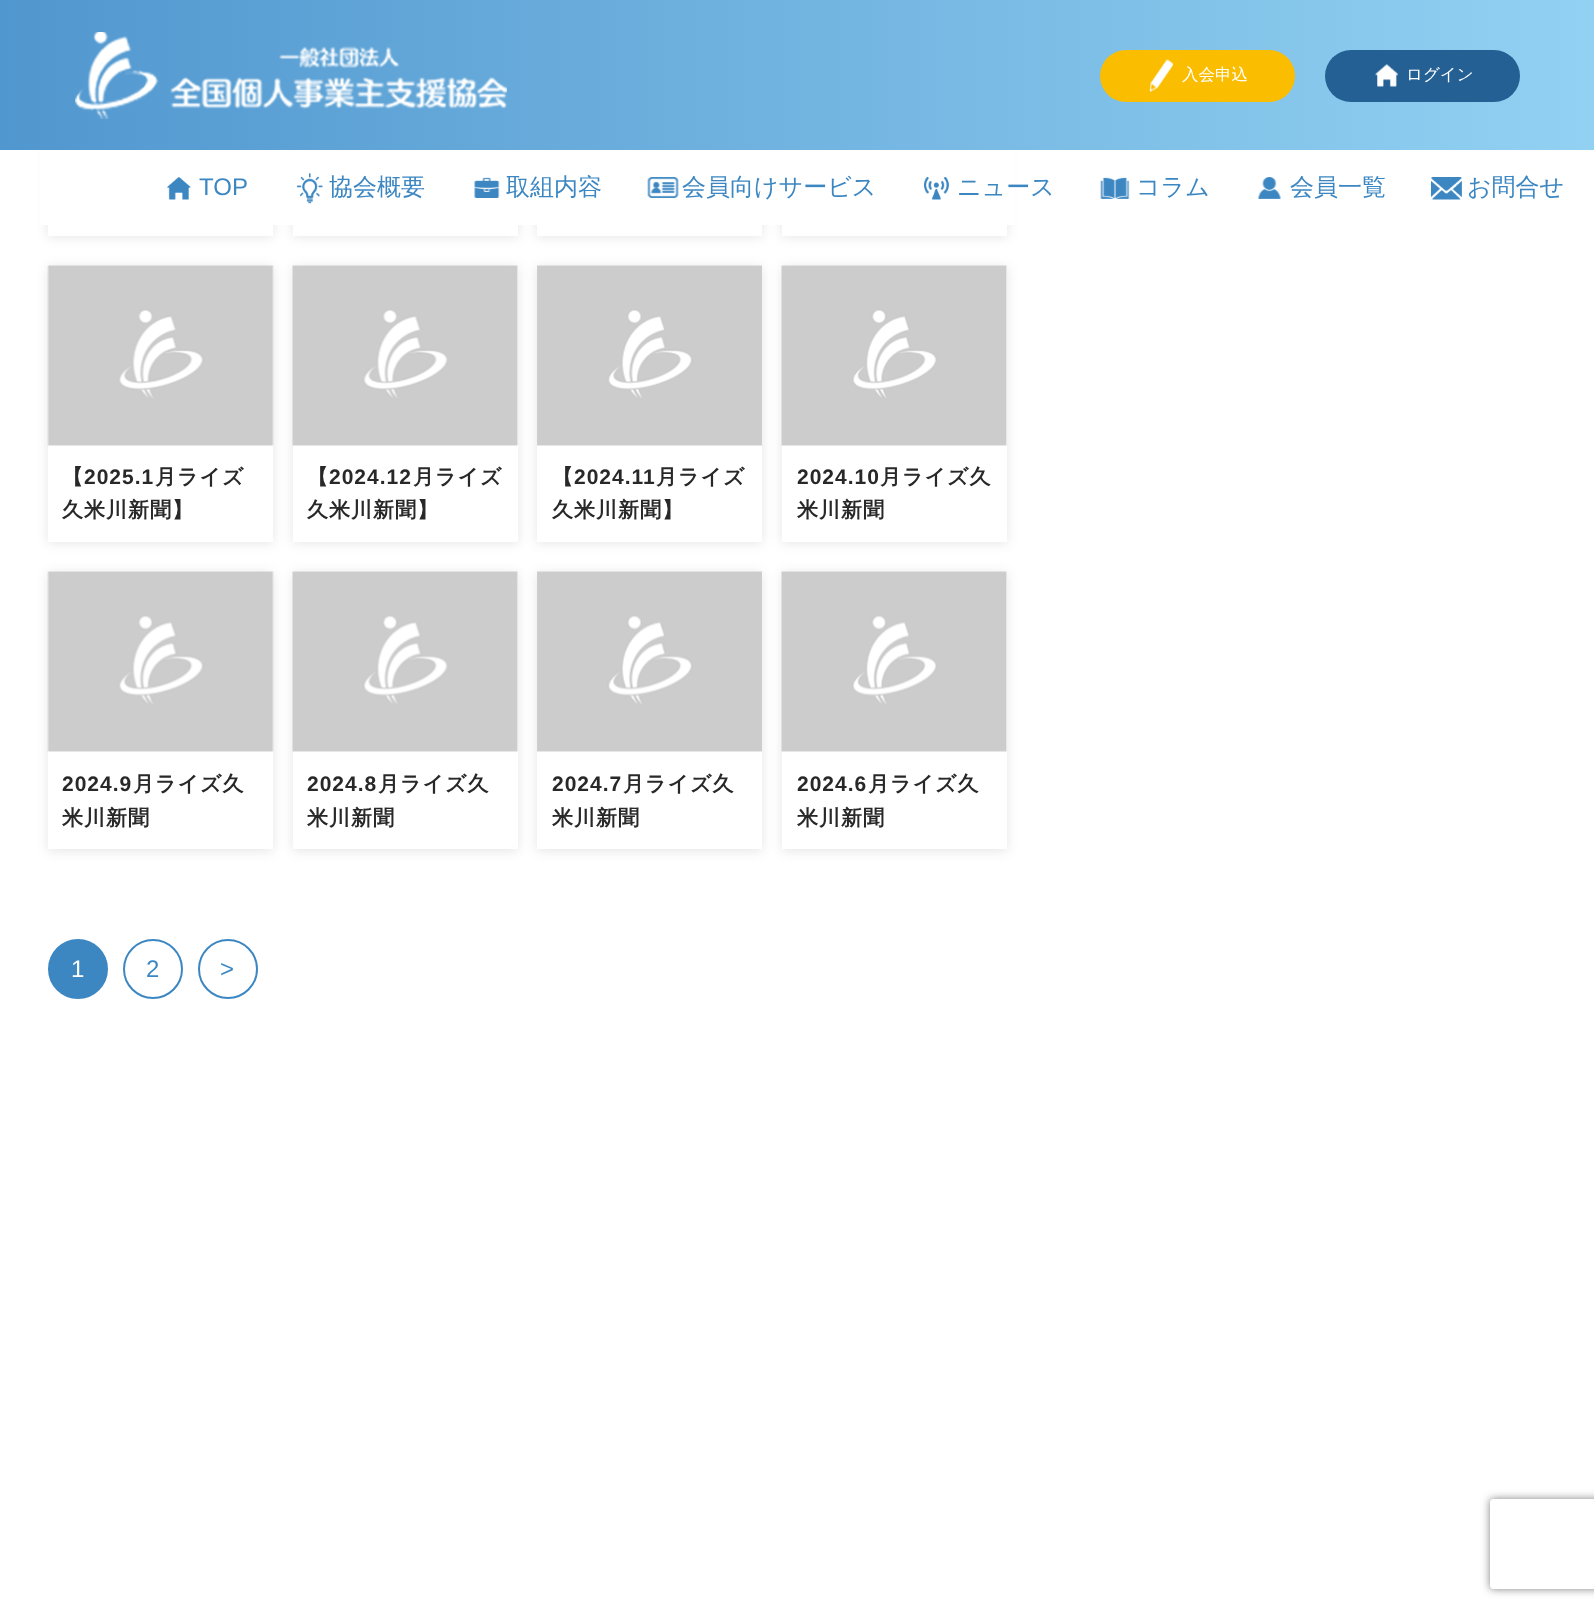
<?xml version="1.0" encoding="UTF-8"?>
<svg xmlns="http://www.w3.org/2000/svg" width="1594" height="1609">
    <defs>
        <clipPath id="clip1"><path d="M 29 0 H 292 V 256 H 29 Z M 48 -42 H 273 V 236 H 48 Z" clip-rule="evenodd"/></clipPath>
        <filter id="blur1" x="-50%" y="-200%" width="200%" height="500%"><feGaussianBlur stdDeviation="6"/></filter>
        <clipPath id="clip2"><path d="M 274 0 H 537 V 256 H 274 Z M 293 -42 H 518 V 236 H 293 Z" clip-rule="evenodd"/></clipPath>
        <clipPath id="clip3"><path d="M 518 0 H 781 V 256 H 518 Z M 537 -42 H 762 V 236 H 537 Z" clip-rule="evenodd"/></clipPath>
        <clipPath id="clip4"><path d="M 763 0 H 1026 V 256 H 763 Z M 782 -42 H 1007 V 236 H 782 Z" clip-rule="evenodd"/></clipPath>
        <linearGradient id="g1" gradientUnits="userSpaceOnUse" x1="0" y1="75" x2="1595" y2="75"><stop offset="0" stop-color="#5197CF"/><stop offset="1" stop-color="#92D1F2"/></linearGradient>
        <clipPath id="clip5"><path d="M 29 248 H 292 V 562 H 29 Z M 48 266 H 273 V 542 H 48 Z" clip-rule="evenodd"/></clipPath>
        <clipPath id="clip6"><path d="M 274 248 H 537 V 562 H 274 Z M 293 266 H 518 V 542 H 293 Z" clip-rule="evenodd"/></clipPath>
        <clipPath id="clip7"><path d="M 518 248 H 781 V 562 H 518 Z M 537 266 H 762 V 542 H 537 Z" clip-rule="evenodd"/></clipPath>
        <clipPath id="clip8"><path d="M 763 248 H 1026 V 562 H 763 Z M 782 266 H 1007 V 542 H 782 Z" clip-rule="evenodd"/></clipPath>
        <clipPath id="clip9"><path d="M 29 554 H 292 V 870 H 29 Z M 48 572 H 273 V 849 H 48 Z" clip-rule="evenodd"/></clipPath>
        <clipPath id="clip10"><path d="M 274 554 H 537 V 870 H 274 Z M 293 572 H 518 V 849 H 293 Z" clip-rule="evenodd"/></clipPath>
        <clipPath id="clip11"><path d="M 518 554 H 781 V 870 H 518 Z M 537 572 H 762 V 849 H 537 Z" clip-rule="evenodd"/></clipPath>
        <clipPath id="clip12"><path d="M 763 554 H 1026 V 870 H 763 Z M 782 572 H 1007 V 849 H 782 Z" clip-rule="evenodd"/></clipPath>
        <clipPath id="clip13"><path d="M 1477 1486 H 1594 V 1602 H 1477 Z M 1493 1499 H 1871 C 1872.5 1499 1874 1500.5 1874 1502 V 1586 C 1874 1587.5 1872.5 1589 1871 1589 H 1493 C 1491.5 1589 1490 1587.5 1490 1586 V 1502 C 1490 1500.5 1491.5 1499 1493 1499 Z" clip-rule="evenodd"/></clipPath>
        <filter id="blur2" x="-50%" y="-200%" width="200%" height="500%"><feGaussianBlur stdDeviation="4"/></filter>
    </defs>
    <rect width="100%" height="100%" fill="#FFFFFF"/>
    <g clip-path="url(#clip1)">
        <rect x="48" y="-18" width="225" height="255" fill="#000000" fill-opacity="0.1" filter="url(#blur1)"/>
    </g>
    <g clip-path="url(#clip2)">
        <rect x="293" y="-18" width="225" height="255" fill="#000000" fill-opacity="0.1" filter="url(#blur1)"/>
    </g>
    <g clip-path="url(#clip3)">
        <rect x="537" y="-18" width="225" height="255" fill="#000000" fill-opacity="0.1" filter="url(#blur1)"/>
    </g>
    <g clip-path="url(#clip4)">
        <rect x="782" y="-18" width="225" height="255" fill="#000000" fill-opacity="0.1" filter="url(#blur1)"/>
    </g>
    <rect x="0" y="0" width="1594" height="150" fill="url(#g1)"/>
    <image x="75" y="32" width="432" height="87" href="img_01.png"/>
    <rect x="1100" y="50" width="195" height="52" rx="26" fill="#FBBD00"/>
    <image x="1149" y="59" width="24" height="33" href="img_02.png"/>
    <text x="1182" y="80" font-family="WenQuanYi Zen Hei" font-size="16.5" font-weight="500" fill="#FFFFFF">入会申込</text>
    <rect x="1325" y="50" width="195" height="52" rx="26" fill="#246093"/>
    <image x="1375" y="64" width="23" height="23" href="img_03.png"/>
    <text x="1406" y="80" font-family="WenQuanYi Zen Hei" font-size="16.5" font-weight="500" fill="#FFFFFF">ログイン</text>
    <rect x="40" y="150" width="975" height="75" fill="#FFFFFF"/>
    <image x="167" y="177" width="24" height="23" href="img_04.png"/>
    <text x="199" y="195" font-family="Liberation Sans" font-size="24" fill="#3C87C2">TOP</text>
    <image x="297" y="173" width="26" height="31" href="img_05.png"/>
    <text x="329" y="195" font-family="WenQuanYi Zen Hei" font-size="24" font-weight="500" fill="#3C87C2">協会概要</text>
    <image x="474" y="177" width="26" height="21" href="img_06.png"/>
    <text x="506" y="195" font-family="WenQuanYi Zen Hei" font-size="24" font-weight="500" fill="#3C87C2">取組内容</text>
    <image x="647" y="177" width="32" height="21" href="img_07.png"/>
    <text x="682" y="195" font-family="WenQuanYi Zen Hei" font-size="24" font-weight="500" fill="#3C87C2">会員向けサービス</text>
    <image x="924" y="177" width="25" height="23" href="img_08.png"/>
    <text x="957" y="195" font-family="WenQuanYi Zen Hei" font-size="24" font-weight="500" fill="#3C87C2">ニュース</text>
    <image x="1100" y="177" width="30" height="22" href="img_09.png"/>
    <text x="1136" y="195" font-family="WenQuanYi Zen Hei" font-size="24" font-weight="500" fill="#3C87C2">コラム</text>
    <image x="1258" y="177" width="23" height="22" href="img_10.png"/>
    <text x="1290" y="195" font-family="WenQuanYi Zen Hei" font-size="24" font-weight="500" fill="#3C87C2">会員一覧</text>
    <image x="1431" y="177" width="31" height="23" href="img_11.png"/>
    <text x="1467" y="195" font-family="WenQuanYi Zen Hei" font-size="24" font-weight="500" fill="#3C87C2">お問合せ</text>
    <g clip-path="url(#clip5)">
        <rect x="48" y="267" width="225" height="276" fill="#000000" fill-opacity="0.1" filter="url(#blur1)"/>
    </g>
    <image x="47" y="265" width="227" height="181" href="img_12.png"/>
    <text x="62" y="484" font-family="WenQuanYi Zen Hei" font-size="21" font-weight="700" letter-spacing="1" fill="#282828">【</text>
    <text x="84" y="484" font-family="Liberation Sans" font-size="21" font-weight="700" letter-spacing="1" fill="#282828">2025.1</text>
    <text x="155" y="484" font-family="WenQuanYi Zen Hei" font-size="21" font-weight="700" letter-spacing="1" fill="#282828">月ライズ</text>
    <text x="62" y="517" font-family="WenQuanYi Zen Hei" font-size="21" font-weight="700" letter-spacing="1" fill="#282828">久米川新聞】</text>
    <g clip-path="url(#clip6)">
        <rect x="293" y="267" width="225" height="276" fill="#000000" fill-opacity="0.1" filter="url(#blur1)"/>
    </g>
    <image x="292" y="265" width="226" height="181" href="img_13.png"/>
    <text x="307" y="484" font-family="WenQuanYi Zen Hei" font-size="21" font-weight="700" letter-spacing="1" fill="#282828">【</text>
    <text x="329" y="484" font-family="Liberation Sans" font-size="21" font-weight="700" letter-spacing="1" fill="#282828">2024.12</text>
    <text x="413" y="484" font-family="WenQuanYi Zen Hei" font-size="21" font-weight="700" letter-spacing="1" fill="#282828">月ライズ</text>
    <text x="307" y="517" font-family="WenQuanYi Zen Hei" font-size="21" font-weight="700" letter-spacing="1" fill="#282828">久米川新聞】</text>
    <g clip-path="url(#clip7)">
        <rect x="537" y="267" width="225" height="276" fill="#000000" fill-opacity="0.1" filter="url(#blur1)"/>
    </g>
    <image x="537" y="265" width="225" height="181" href="img_14.png"/>
    <text x="552" y="484" font-family="WenQuanYi Zen Hei" font-size="21" font-weight="700" letter-spacing="1" fill="#282828">【</text>
    <text x="574" y="484" font-family="Liberation Sans" font-size="21" font-weight="700" letter-spacing="1" fill="#282828">2024.11</text>
    <text x="656" y="484" font-family="WenQuanYi Zen Hei" font-size="21" font-weight="700" letter-spacing="1" fill="#282828">月ライズ</text>
    <text x="552" y="517" font-family="WenQuanYi Zen Hei" font-size="21" font-weight="700" letter-spacing="1" fill="#282828">久米川新聞】</text>
    <g clip-path="url(#clip8)">
        <rect x="782" y="267" width="225" height="276" fill="#000000" fill-opacity="0.1" filter="url(#blur1)"/>
    </g>
    <image x="781" y="265" width="226" height="181" href="img_15.png"/>
    <text x="797" y="484" font-family="Liberation Sans" font-size="21" font-weight="700" letter-spacing="1" fill="#282828">2024.10</text>
    <text x="880" y="484" font-family="WenQuanYi Zen Hei" font-size="21" font-weight="700" letter-spacing="1" fill="#282828">月ライズ久</text>
    <text x="797" y="517" font-family="WenQuanYi Zen Hei" font-size="21" font-weight="700" letter-spacing="1" fill="#282828">米川新聞</text>
    <g clip-path="url(#clip9)">
        <rect x="48" y="573" width="225" height="278" fill="#000000" fill-opacity="0.1" filter="url(#blur1)"/>
    </g>
    <image x="47" y="571" width="227" height="181" href="img_16.png"/>
    <text x="62" y="791" font-family="Liberation Sans" font-size="21" font-weight="700" letter-spacing="1" fill="#282828">2024.9</text>
    <text x="133" y="791" font-family="WenQuanYi Zen Hei" font-size="21" font-weight="700" letter-spacing="1" fill="#282828">月ライズ久</text>
    <text x="62" y="825" font-family="WenQuanYi Zen Hei" font-size="21" font-weight="700" letter-spacing="1" fill="#282828">米川新聞</text>
    <g clip-path="url(#clip10)">
        <rect x="293" y="573" width="225" height="278" fill="#000000" fill-opacity="0.1" filter="url(#blur1)"/>
    </g>
    <image x="292" y="571" width="226" height="181" href="img_17.png"/>
    <text x="307" y="791" font-family="Liberation Sans" font-size="21" font-weight="700" letter-spacing="1" fill="#282828">2024.8</text>
    <text x="378" y="791" font-family="WenQuanYi Zen Hei" font-size="21" font-weight="700" letter-spacing="1" fill="#282828">月ライズ久</text>
    <text x="307" y="825" font-family="WenQuanYi Zen Hei" font-size="21" font-weight="700" letter-spacing="1" fill="#282828">米川新聞</text>
    <g clip-path="url(#clip11)">
        <rect x="537" y="573" width="225" height="278" fill="#000000" fill-opacity="0.1" filter="url(#blur1)"/>
    </g>
    <image x="537" y="571" width="225" height="181" href="img_18.png"/>
    <text x="552" y="791" font-family="Liberation Sans" font-size="21" font-weight="700" letter-spacing="1" fill="#282828">2024.7</text>
    <text x="623" y="791" font-family="WenQuanYi Zen Hei" font-size="21" font-weight="700" letter-spacing="1" fill="#282828">月ライズ久</text>
    <text x="552" y="825" font-family="WenQuanYi Zen Hei" font-size="21" font-weight="700" letter-spacing="1" fill="#282828">米川新聞</text>
    <g clip-path="url(#clip12)">
        <rect x="782" y="573" width="225" height="278" fill="#000000" fill-opacity="0.1" filter="url(#blur1)"/>
    </g>
    <image x="781" y="571" width="226" height="181" href="img_19.png"/>
    <text x="797" y="791" font-family="Liberation Sans" font-size="21" font-weight="700" letter-spacing="1" fill="#282828">2024.6</text>
    <text x="868" y="791" font-family="WenQuanYi Zen Hei" font-size="21" font-weight="700" letter-spacing="1" fill="#282828">月ライズ久</text>
    <text x="797" y="825" font-family="WenQuanYi Zen Hei" font-size="21" font-weight="700" letter-spacing="1" fill="#282828">米川新聞</text>
    <circle cx="78" cy="969" r="29" fill="#3C87C2" stroke="#3C87C2" stroke-width="2"/>
    <text x="71" y="977" font-family="Liberation Sans" font-size="24" fill="#FFFFFF">1</text>
    <circle cx="153" cy="969" r="29" fill="none" stroke="#3C87C2" stroke-width="2"/>
    <text x="146" y="977" font-family="Liberation Sans" font-size="24" fill="#3C87C2">2</text>
    <circle cx="228" cy="969" r="29" fill="none" stroke="#3C87C2" stroke-width="2"/>
    <text x="220" y="977" font-family="Liberation Sans" font-size="24" fill="#3C87C2">&gt;</text>
    <g clip-path="url(#clip13)">
        <rect x="1490" y="1499" width="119" height="90" rx="3" fill="#808080" filter="url(#blur2)"/>
    </g>
</svg>
